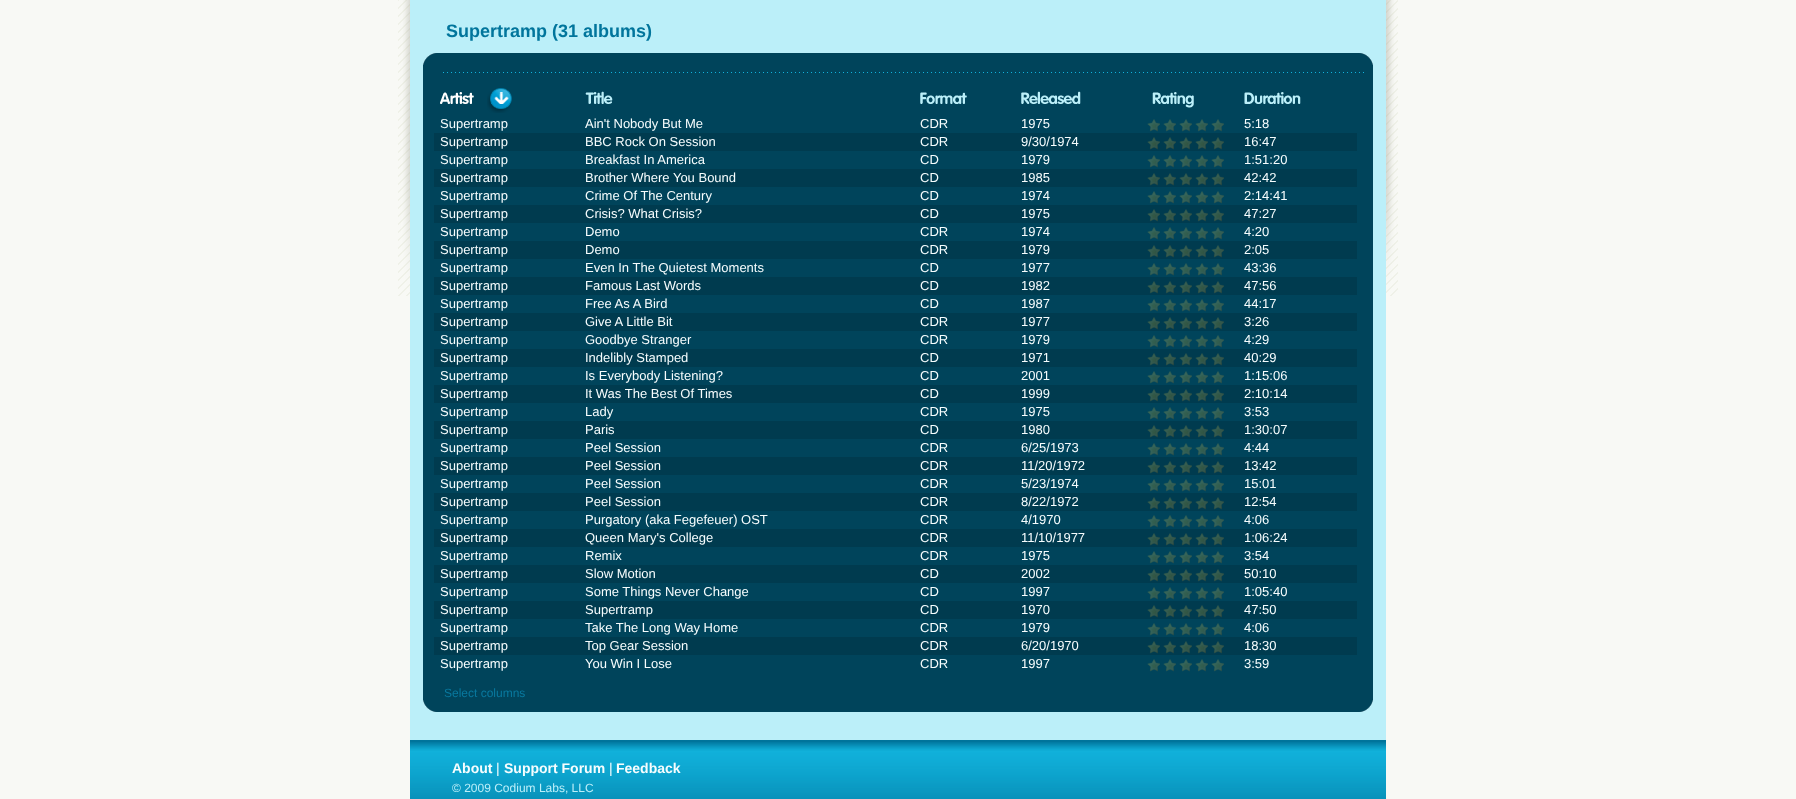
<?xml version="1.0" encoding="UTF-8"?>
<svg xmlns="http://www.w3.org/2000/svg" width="1796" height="799">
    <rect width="100%" height="100%" fill="#F8F9F5"/>
    <image x="398" y="0" width="12" height="296" href="img_01.png"/>
    <rect x="410" y="0" width="976" height="740" fill="#BBEFF9"/>
    <text x="446" y="37" font-family="Liberation Sans" font-size="18" font-weight="700" fill="#01759C">Supertramp (31 albums)</text>
    <rect x="423" y="65" width="950" height="635" fill="#00445B"/>
    <image x="423" y="53" width="950" height="12" href="img_02.png"/>
    <image x="443" y="72" width="921" height="1" href="img_03.png"/>
    <image x="440" y="92" width="34" height="12" href="img_04.png"/>
    <image x="487" y="88" width="25" height="25" href="img_05.png"/>
    <image x="585" y="91" width="28" height="13" href="img_06.png"/>
    <image x="920" y="92" width="47" height="12" href="img_07.png"/>
    <image x="1021" y="91" width="60" height="13" href="img_08.png"/>
    <image x="1152" y="92" width="42" height="16" href="img_09.png"/>
    <image x="1244" y="92" width="57" height="12" href="img_10.png"/>
    <text x="440" y="128" font-family="Liberation Sans" font-size="13" fill="#F6FDFE">Supertramp</text>
    <text x="585" y="128" font-family="Liberation Sans" font-size="13" fill="#F6FDFE">Ain't Nobody But Me</text>
    <text x="920" y="128" font-family="Liberation Sans" font-size="13" fill="#F6FDFE">CDR</text>
    <text x="1021" y="128" font-family="Liberation Sans" font-size="13" fill="#F6FDFE">1975</text>
    <image x="1147" y="119" width="77" height="13" href="img_11.png"/>
    <text x="1244" y="128" font-family="Liberation Sans" font-size="13" fill="#F6FDFE">5:18</text>
    <rect x="434" y="133" width="923" height="18" fill="#003B4F"/>
    <text x="440" y="146" font-family="Liberation Sans" font-size="13" fill="#F6FDFE">Supertramp</text>
    <text x="585" y="146" font-family="Liberation Sans" font-size="13" fill="#F6FDFE">BBC Rock On Session</text>
    <text x="920" y="146" font-family="Liberation Sans" font-size="13" fill="#F6FDFE">CDR</text>
    <text x="1021" y="146" font-family="Liberation Sans" font-size="13" fill="#F6FDFE">9/30/1974</text>
    <image x="1147" y="137" width="77" height="13" href="img_12.png"/>
    <text x="1244" y="146" font-family="Liberation Sans" font-size="13" fill="#F6FDFE">16:47</text>
    <text x="440" y="164" font-family="Liberation Sans" font-size="13" fill="#F6FDFE">Supertramp</text>
    <text x="585" y="164" font-family="Liberation Sans" font-size="13" fill="#F6FDFE">Breakfast In America</text>
    <text x="920" y="164" font-family="Liberation Sans" font-size="13" fill="#F6FDFE">CD</text>
    <text x="1021" y="164" font-family="Liberation Sans" font-size="13" fill="#F6FDFE">1979</text>
    <image x="1147" y="155" width="77" height="13" href="img_11.png"/>
    <text x="1244" y="164" font-family="Liberation Sans" font-size="13" fill="#F6FDFE">1:51:20</text>
    <rect x="434" y="169" width="923" height="18" fill="#003B4F"/>
    <text x="440" y="182" font-family="Liberation Sans" font-size="13" fill="#F6FDFE">Supertramp</text>
    <text x="585" y="182" font-family="Liberation Sans" font-size="13" fill="#F6FDFE">Brother Where You Bound</text>
    <text x="920" y="182" font-family="Liberation Sans" font-size="13" fill="#F6FDFE">CD</text>
    <text x="1021" y="182" font-family="Liberation Sans" font-size="13" fill="#F6FDFE">1985</text>
    <image x="1147" y="173" width="77" height="13" href="img_12.png"/>
    <text x="1244" y="182" font-family="Liberation Sans" font-size="13" fill="#F6FDFE">42:42</text>
    <text x="440" y="200" font-family="Liberation Sans" font-size="13" fill="#F6FDFE">Supertramp</text>
    <text x="585" y="200" font-family="Liberation Sans" font-size="13" fill="#F6FDFE">Crime Of The Century</text>
    <text x="920" y="200" font-family="Liberation Sans" font-size="13" fill="#F6FDFE">CD</text>
    <text x="1021" y="200" font-family="Liberation Sans" font-size="13" fill="#F6FDFE">1974</text>
    <image x="1147" y="191" width="77" height="13" href="img_11.png"/>
    <text x="1244" y="200" font-family="Liberation Sans" font-size="13" fill="#F6FDFE">2:14:41</text>
    <rect x="434" y="205" width="923" height="18" fill="#003B4F"/>
    <text x="440" y="218" font-family="Liberation Sans" font-size="13" fill="#F6FDFE">Supertramp</text>
    <text x="585" y="218" font-family="Liberation Sans" font-size="13" fill="#F6FDFE">Crisis? What Crisis?</text>
    <text x="920" y="218" font-family="Liberation Sans" font-size="13" fill="#F6FDFE">CD</text>
    <text x="1021" y="218" font-family="Liberation Sans" font-size="13" fill="#F6FDFE">1975</text>
    <image x="1147" y="209" width="77" height="13" href="img_12.png"/>
    <text x="1244" y="218" font-family="Liberation Sans" font-size="13" fill="#F6FDFE">47:27</text>
    <text x="440" y="236" font-family="Liberation Sans" font-size="13" fill="#F6FDFE">Supertramp</text>
    <text x="585" y="236" font-family="Liberation Sans" font-size="13" fill="#F6FDFE">Demo</text>
    <text x="920" y="236" font-family="Liberation Sans" font-size="13" fill="#F6FDFE">CDR</text>
    <text x="1021" y="236" font-family="Liberation Sans" font-size="13" fill="#F6FDFE">1974</text>
    <image x="1147" y="227" width="77" height="13" href="img_11.png"/>
    <text x="1244" y="236" font-family="Liberation Sans" font-size="13" fill="#F6FDFE">4:20</text>
    <rect x="434" y="241" width="923" height="18" fill="#003B4F"/>
    <text x="440" y="254" font-family="Liberation Sans" font-size="13" fill="#F6FDFE">Supertramp</text>
    <text x="585" y="254" font-family="Liberation Sans" font-size="13" fill="#F6FDFE">Demo</text>
    <text x="920" y="254" font-family="Liberation Sans" font-size="13" fill="#F6FDFE">CDR</text>
    <text x="1021" y="254" font-family="Liberation Sans" font-size="13" fill="#F6FDFE">1979</text>
    <image x="1147" y="245" width="77" height="13" href="img_12.png"/>
    <text x="1244" y="254" font-family="Liberation Sans" font-size="13" fill="#F6FDFE">2:05</text>
    <text x="440" y="272" font-family="Liberation Sans" font-size="13" fill="#F6FDFE">Supertramp</text>
    <text x="585" y="272" font-family="Liberation Sans" font-size="13" fill="#F6FDFE">Even In The Quietest Moments</text>
    <text x="920" y="272" font-family="Liberation Sans" font-size="13" fill="#F6FDFE">CD</text>
    <text x="1021" y="272" font-family="Liberation Sans" font-size="13" fill="#F6FDFE">1977</text>
    <image x="1147" y="263" width="77" height="13" href="img_11.png"/>
    <text x="1244" y="272" font-family="Liberation Sans" font-size="13" fill="#F6FDFE">43:36</text>
    <rect x="434" y="277" width="923" height="18" fill="#003B4F"/>
    <text x="440" y="290" font-family="Liberation Sans" font-size="13" fill="#F6FDFE">Supertramp</text>
    <text x="585" y="290" font-family="Liberation Sans" font-size="13" fill="#F6FDFE">Famous Last Words</text>
    <text x="920" y="290" font-family="Liberation Sans" font-size="13" fill="#F6FDFE">CD</text>
    <text x="1021" y="290" font-family="Liberation Sans" font-size="13" fill="#F6FDFE">1982</text>
    <image x="1147" y="281" width="77" height="13" href="img_12.png"/>
    <text x="1244" y="290" font-family="Liberation Sans" font-size="13" fill="#F6FDFE">47:56</text>
    <text x="440" y="308" font-family="Liberation Sans" font-size="13" fill="#F6FDFE">Supertramp</text>
    <text x="585" y="308" font-family="Liberation Sans" font-size="13" fill="#F6FDFE">Free As A Bird</text>
    <text x="920" y="308" font-family="Liberation Sans" font-size="13" fill="#F6FDFE">CD</text>
    <text x="1021" y="308" font-family="Liberation Sans" font-size="13" fill="#F6FDFE">1987</text>
    <image x="1147" y="299" width="77" height="13" href="img_11.png"/>
    <text x="1244" y="308" font-family="Liberation Sans" font-size="13" fill="#F6FDFE">44:17</text>
    <rect x="434" y="313" width="923" height="18" fill="#003B4F"/>
    <text x="440" y="326" font-family="Liberation Sans" font-size="13" fill="#F6FDFE">Supertramp</text>
    <text x="585" y="326" font-family="Liberation Sans" font-size="13" fill="#F6FDFE">Give A Little Bit</text>
    <text x="920" y="326" font-family="Liberation Sans" font-size="13" fill="#F6FDFE">CDR</text>
    <text x="1021" y="326" font-family="Liberation Sans" font-size="13" fill="#F6FDFE">1977</text>
    <image x="1147" y="317" width="77" height="13" href="img_12.png"/>
    <text x="1244" y="326" font-family="Liberation Sans" font-size="13" fill="#F6FDFE">3:26</text>
    <text x="440" y="344" font-family="Liberation Sans" font-size="13" fill="#F6FDFE">Supertramp</text>
    <text x="585" y="344" font-family="Liberation Sans" font-size="13" fill="#F6FDFE">Goodbye Stranger</text>
    <text x="920" y="344" font-family="Liberation Sans" font-size="13" fill="#F6FDFE">CDR</text>
    <text x="1021" y="344" font-family="Liberation Sans" font-size="13" fill="#F6FDFE">1979</text>
    <image x="1147" y="335" width="77" height="13" href="img_11.png"/>
    <text x="1244" y="344" font-family="Liberation Sans" font-size="13" fill="#F6FDFE">4:29</text>
    <rect x="434" y="349" width="923" height="18" fill="#003B4F"/>
    <text x="440" y="362" font-family="Liberation Sans" font-size="13" fill="#F6FDFE">Supertramp</text>
    <text x="585" y="362" font-family="Liberation Sans" font-size="13" fill="#F6FDFE">Indelibly Stamped</text>
    <text x="920" y="362" font-family="Liberation Sans" font-size="13" fill="#F6FDFE">CD</text>
    <text x="1021" y="362" font-family="Liberation Sans" font-size="13" fill="#F6FDFE">1971</text>
    <image x="1147" y="353" width="77" height="13" href="img_12.png"/>
    <text x="1244" y="362" font-family="Liberation Sans" font-size="13" fill="#F6FDFE">40:29</text>
    <text x="440" y="380" font-family="Liberation Sans" font-size="13" fill="#F6FDFE">Supertramp</text>
    <text x="585" y="380" font-family="Liberation Sans" font-size="13" fill="#F6FDFE">Is Everybody Listening?</text>
    <text x="920" y="380" font-family="Liberation Sans" font-size="13" fill="#F6FDFE">CD</text>
    <text x="1021" y="380" font-family="Liberation Sans" font-size="13" fill="#F6FDFE">2001</text>
    <image x="1147" y="371" width="77" height="13" href="img_11.png"/>
    <text x="1244" y="380" font-family="Liberation Sans" font-size="13" fill="#F6FDFE">1:15:06</text>
    <rect x="434" y="385" width="923" height="18" fill="#003B4F"/>
    <text x="440" y="398" font-family="Liberation Sans" font-size="13" fill="#F6FDFE">Supertramp</text>
    <text x="585" y="398" font-family="Liberation Sans" font-size="13" fill="#F6FDFE">It Was The Best Of Times</text>
    <text x="920" y="398" font-family="Liberation Sans" font-size="13" fill="#F6FDFE">CD</text>
    <text x="1021" y="398" font-family="Liberation Sans" font-size="13" fill="#F6FDFE">1999</text>
    <image x="1147" y="389" width="77" height="13" href="img_12.png"/>
    <text x="1244" y="398" font-family="Liberation Sans" font-size="13" fill="#F6FDFE">2:10:14</text>
    <text x="440" y="416" font-family="Liberation Sans" font-size="13" fill="#F6FDFE">Supertramp</text>
    <text x="585" y="416" font-family="Liberation Sans" font-size="13" fill="#F6FDFE">Lady</text>
    <text x="920" y="416" font-family="Liberation Sans" font-size="13" fill="#F6FDFE">CDR</text>
    <text x="1021" y="416" font-family="Liberation Sans" font-size="13" fill="#F6FDFE">1975</text>
    <image x="1147" y="407" width="77" height="13" href="img_11.png"/>
    <text x="1244" y="416" font-family="Liberation Sans" font-size="13" fill="#F6FDFE">3:53</text>
    <rect x="434" y="421" width="923" height="18" fill="#003B4F"/>
    <text x="440" y="434" font-family="Liberation Sans" font-size="13" fill="#F6FDFE">Supertramp</text>
    <text x="585" y="434" font-family="Liberation Sans" font-size="13" fill="#F6FDFE">Paris</text>
    <text x="920" y="434" font-family="Liberation Sans" font-size="13" fill="#F6FDFE">CD</text>
    <text x="1021" y="434" font-family="Liberation Sans" font-size="13" fill="#F6FDFE">1980</text>
    <image x="1147" y="425" width="77" height="13" href="img_12.png"/>
    <text x="1244" y="434" font-family="Liberation Sans" font-size="13" fill="#F6FDFE">1:30:07</text>
    <text x="440" y="452" font-family="Liberation Sans" font-size="13" fill="#F6FDFE">Supertramp</text>
    <text x="585" y="452" font-family="Liberation Sans" font-size="13" fill="#F6FDFE">Peel Session</text>
    <text x="920" y="452" font-family="Liberation Sans" font-size="13" fill="#F6FDFE">CDR</text>
    <text x="1021" y="452" font-family="Liberation Sans" font-size="13" fill="#F6FDFE">6/25/1973</text>
    <image x="1147" y="443" width="77" height="13" href="img_11.png"/>
    <text x="1244" y="452" font-family="Liberation Sans" font-size="13" fill="#F6FDFE">4:44</text>
    <rect x="434" y="457" width="923" height="18" fill="#003B4F"/>
    <text x="440" y="470" font-family="Liberation Sans" font-size="13" fill="#F6FDFE">Supertramp</text>
    <text x="585" y="470" font-family="Liberation Sans" font-size="13" fill="#F6FDFE">Peel Session</text>
    <text x="920" y="470" font-family="Liberation Sans" font-size="13" fill="#F6FDFE">CDR</text>
    <text x="1021" y="470" font-family="Liberation Sans" font-size="13" fill="#F6FDFE">11/20/1972</text>
    <image x="1147" y="461" width="77" height="13" href="img_12.png"/>
    <text x="1244" y="470" font-family="Liberation Sans" font-size="13" fill="#F6FDFE">13:42</text>
    <text x="440" y="488" font-family="Liberation Sans" font-size="13" fill="#F6FDFE">Supertramp</text>
    <text x="585" y="488" font-family="Liberation Sans" font-size="13" fill="#F6FDFE">Peel Session</text>
    <text x="920" y="488" font-family="Liberation Sans" font-size="13" fill="#F6FDFE">CDR</text>
    <text x="1021" y="488" font-family="Liberation Sans" font-size="13" fill="#F6FDFE">5/23/1974</text>
    <image x="1147" y="479" width="77" height="13" href="img_11.png"/>
    <text x="1244" y="488" font-family="Liberation Sans" font-size="13" fill="#F6FDFE">15:01</text>
    <rect x="434" y="493" width="923" height="18" fill="#003B4F"/>
    <text x="440" y="506" font-family="Liberation Sans" font-size="13" fill="#F6FDFE">Supertramp</text>
    <text x="585" y="506" font-family="Liberation Sans" font-size="13" fill="#F6FDFE">Peel Session</text>
    <text x="920" y="506" font-family="Liberation Sans" font-size="13" fill="#F6FDFE">CDR</text>
    <text x="1021" y="506" font-family="Liberation Sans" font-size="13" fill="#F6FDFE">8/22/1972</text>
    <image x="1147" y="497" width="77" height="13" href="img_12.png"/>
    <text x="1244" y="506" font-family="Liberation Sans" font-size="13" fill="#F6FDFE">12:54</text>
    <text x="440" y="524" font-family="Liberation Sans" font-size="13" fill="#F6FDFE">Supertramp</text>
    <text x="585" y="524" font-family="Liberation Sans" font-size="13" fill="#F6FDFE">Purgatory (aka Fegefeuer) OST</text>
    <text x="920" y="524" font-family="Liberation Sans" font-size="13" fill="#F6FDFE">CDR</text>
    <text x="1021" y="524" font-family="Liberation Sans" font-size="13" fill="#F6FDFE">4/1970</text>
    <image x="1147" y="515" width="77" height="13" href="img_11.png"/>
    <text x="1244" y="524" font-family="Liberation Sans" font-size="13" fill="#F6FDFE">4:06</text>
    <rect x="434" y="529" width="923" height="18" fill="#003B4F"/>
    <text x="440" y="542" font-family="Liberation Sans" font-size="13" fill="#F6FDFE">Supertramp</text>
    <text x="585" y="542" font-family="Liberation Sans" font-size="13" fill="#F6FDFE">Queen Mary's College</text>
    <text x="920" y="542" font-family="Liberation Sans" font-size="13" fill="#F6FDFE">CDR</text>
    <text x="1021" y="542" font-family="Liberation Sans" font-size="13" fill="#F6FDFE">11/10/1977</text>
    <image x="1147" y="533" width="77" height="13" href="img_12.png"/>
    <text x="1244" y="542" font-family="Liberation Sans" font-size="13" fill="#F6FDFE">1:06:24</text>
    <text x="440" y="560" font-family="Liberation Sans" font-size="13" fill="#F6FDFE">Supertramp</text>
    <text x="585" y="560" font-family="Liberation Sans" font-size="13" fill="#F6FDFE">Remix</text>
    <text x="920" y="560" font-family="Liberation Sans" font-size="13" fill="#F6FDFE">CDR</text>
    <text x="1021" y="560" font-family="Liberation Sans" font-size="13" fill="#F6FDFE">1975</text>
    <image x="1147" y="551" width="77" height="13" href="img_11.png"/>
    <text x="1244" y="560" font-family="Liberation Sans" font-size="13" fill="#F6FDFE">3:54</text>
    <rect x="434" y="565" width="923" height="18" fill="#003B4F"/>
    <text x="440" y="578" font-family="Liberation Sans" font-size="13" fill="#F6FDFE">Supertramp</text>
    <text x="585" y="578" font-family="Liberation Sans" font-size="13" fill="#F6FDFE">Slow Motion</text>
    <text x="920" y="578" font-family="Liberation Sans" font-size="13" fill="#F6FDFE">CD</text>
    <text x="1021" y="578" font-family="Liberation Sans" font-size="13" fill="#F6FDFE">2002</text>
    <image x="1147" y="569" width="77" height="13" href="img_12.png"/>
    <text x="1244" y="578" font-family="Liberation Sans" font-size="13" fill="#F6FDFE">50:10</text>
    <text x="440" y="596" font-family="Liberation Sans" font-size="13" fill="#F6FDFE">Supertramp</text>
    <text x="585" y="596" font-family="Liberation Sans" font-size="13" fill="#F6FDFE">Some Things Never Change</text>
    <text x="920" y="596" font-family="Liberation Sans" font-size="13" fill="#F6FDFE">CD</text>
    <text x="1021" y="596" font-family="Liberation Sans" font-size="13" fill="#F6FDFE">1997</text>
    <image x="1147" y="587" width="77" height="13" href="img_11.png"/>
    <text x="1244" y="596" font-family="Liberation Sans" font-size="13" fill="#F6FDFE">1:05:40</text>
    <rect x="434" y="601" width="923" height="18" fill="#003B4F"/>
    <text x="440" y="614" font-family="Liberation Sans" font-size="13" fill="#F6FDFE">Supertramp</text>
    <text x="585" y="614" font-family="Liberation Sans" font-size="13" fill="#F6FDFE">Supertramp</text>
    <text x="920" y="614" font-family="Liberation Sans" font-size="13" fill="#F6FDFE">CD</text>
    <text x="1021" y="614" font-family="Liberation Sans" font-size="13" fill="#F6FDFE">1970</text>
    <image x="1147" y="605" width="77" height="13" href="img_12.png"/>
    <text x="1244" y="614" font-family="Liberation Sans" font-size="13" fill="#F6FDFE">47:50</text>
    <text x="440" y="632" font-family="Liberation Sans" font-size="13" fill="#F6FDFE">Supertramp</text>
    <text x="585" y="632" font-family="Liberation Sans" font-size="13" fill="#F6FDFE">Take The Long Way Home</text>
    <text x="920" y="632" font-family="Liberation Sans" font-size="13" fill="#F6FDFE">CDR</text>
    <text x="1021" y="632" font-family="Liberation Sans" font-size="13" fill="#F6FDFE">1979</text>
    <image x="1147" y="623" width="77" height="13" href="img_11.png"/>
    <text x="1244" y="632" font-family="Liberation Sans" font-size="13" fill="#F6FDFE">4:06</text>
    <rect x="434" y="637" width="923" height="18" fill="#003B4F"/>
    <text x="440" y="650" font-family="Liberation Sans" font-size="13" fill="#F6FDFE">Supertramp</text>
    <text x="585" y="650" font-family="Liberation Sans" font-size="13" fill="#F6FDFE">Top Gear Session</text>
    <text x="920" y="650" font-family="Liberation Sans" font-size="13" fill="#F6FDFE">CDR</text>
    <text x="1021" y="650" font-family="Liberation Sans" font-size="13" fill="#F6FDFE">6/20/1970</text>
    <image x="1147" y="641" width="77" height="13" href="img_12.png"/>
    <text x="1244" y="650" font-family="Liberation Sans" font-size="13" fill="#F6FDFE">18:30</text>
    <text x="440" y="668" font-family="Liberation Sans" font-size="13" fill="#F6FDFE">Supertramp</text>
    <text x="585" y="668" font-family="Liberation Sans" font-size="13" fill="#F6FDFE">You Win I Lose</text>
    <text x="920" y="668" font-family="Liberation Sans" font-size="13" fill="#F6FDFE">CDR</text>
    <text x="1021" y="668" font-family="Liberation Sans" font-size="13" fill="#F6FDFE">1997</text>
    <image x="1147" y="659" width="77" height="13" href="img_11.png"/>
    <text x="1244" y="668" font-family="Liberation Sans" font-size="13" fill="#F6FDFE">3:59</text>
    <text x="444" y="697" font-family="Liberation Sans" font-size="12" fill="#08799F">Select columns</text>
    <image x="423" y="700" width="950" height="12" href="img_13.png"/>
    <rect x="410" y="740" width="976" height="2" fill="#00749B"/>
    <image x="410" y="742" width="976" height="57" href="img_14.png"/>
    <text x="452" y="773" font-family="Liberation Sans" font-size="14" font-weight="700" fill="#F6FDFE">About</text>
    <text x="496" y="773" font-family="Liberation Sans" font-size="14" fill="#F6FDFE">|</text>
    <text x="504" y="773" font-family="Liberation Sans" font-size="14" font-weight="700" fill="#F6FDFE">Support Forum</text>
    <text x="609" y="773" font-family="Liberation Sans" font-size="14" fill="#F6FDFE">|</text>
    <text x="616" y="773" font-family="Liberation Sans" font-size="14" font-weight="700" fill="#F6FDFE">Feedback</text>
    <text x="452" y="792" font-family="Liberation Sans" font-size="12" fill="#BBEFF9">© 2009 Codium Labs, LLC</text>
    <image x="1386" y="0" width="12" height="296" href="img_15.png"/>
</svg>
